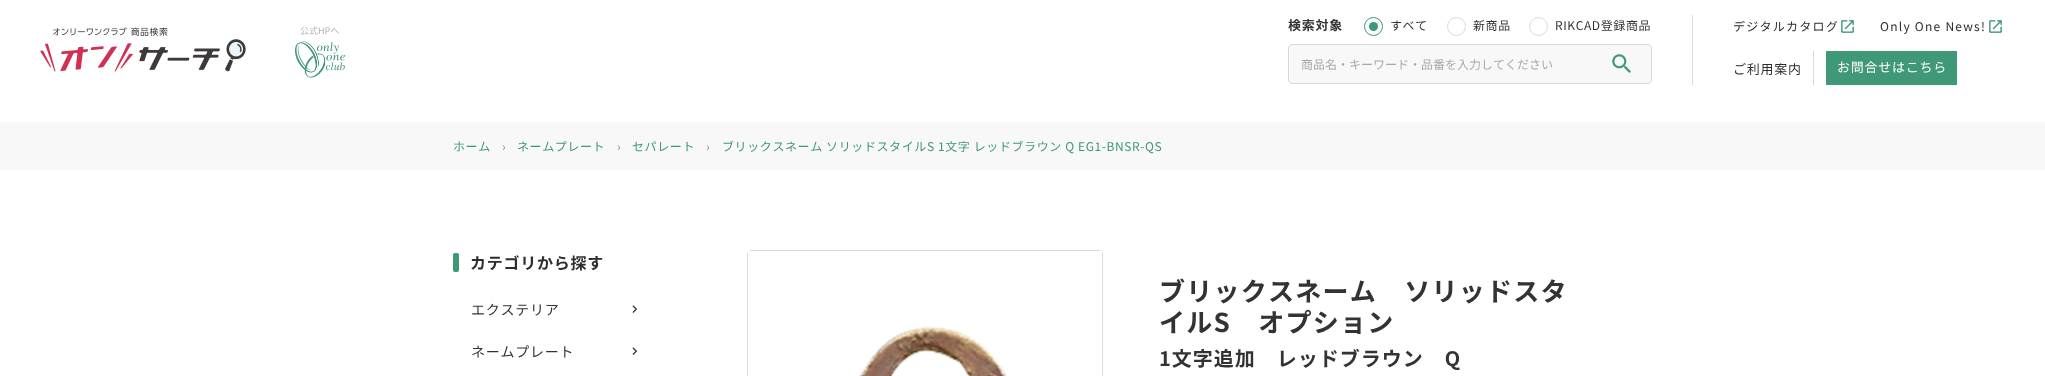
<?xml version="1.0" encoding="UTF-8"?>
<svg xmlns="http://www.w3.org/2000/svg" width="2045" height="376">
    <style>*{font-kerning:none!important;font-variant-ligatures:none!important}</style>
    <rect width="100%" height="100%" fill="#FFFFFF"/>
    <image x="40" y="27" width="206" height="45" href="img_01.png"/>
    <text x="300" y="34" font-family="Noto Sans JP" font-size="9" fill="#B2B2B2">公式HPへ</text>
    <image x="295" y="41" width="50" height="37" href="img_02.png"/>
    <text x="1288" y="30" font-family="Noto Sans JP" font-size="13" font-weight="700" letter-spacing="0.75" fill="#333333">検索対象</text>
    <circle cx="1373.5" cy="26.5" r="9" fill="none" stroke="#3F9876"/>
    <text x="1390" y="30" font-family="Noto Sans JP" font-size="12" letter-spacing="0.6" fill="#333333">すべて</text>
    <circle cx="1373.5" cy="26.5" r="4.5" fill="#3F9876"/>
    <circle cx="1456.5" cy="26.5" r="9" fill="none" stroke="#DBDBDB"/>
    <text x="1473" y="30" font-family="Noto Sans JP" font-size="12" letter-spacing="0.6" fill="#333333">新商品</text>
    <circle cx="1538.5" cy="26.5" r="9" fill="none" stroke="#DBDBDB"/>
    <text x="1555" y="30" font-family="Noto Sans JP" font-size="12" letter-spacing="0.6" fill="#333333">RIKCAD登録商品</text>
    <rect x="1288.5" y="44.5" width="363" height="39" rx="3.5" fill="#F8F8F8" stroke="#D9D9D9"/>
    <text x="1301" y="69" font-family="Noto Sans JP" font-size="12" fill="#A8A8A8">商品名・キーワード・品番を入力してください</text>
    <image x="1612" y="54" width="19" height="19" href="img_03.png"/>
    <rect x="1692" y="15" width="1" height="70" fill="#DBDBDB"/>
    <text x="1733" y="31" font-family="Noto Sans JP" font-size="12" letter-spacing="1.25" fill="#2D2D2D">デジタルカタログ</text>
    <image x="1841" y="20" width="13" height="13" href="img_04.png"/>
    <text x="1880" y="31" font-family="Noto Sans JP" font-size="12" letter-spacing="1.25" fill="#2D2D2D">Only One News!</text>
    <image x="1989" y="20" width="13" height="13" href="img_04.png"/>
    <text x="1733" y="74" font-family="Noto Sans JP" font-size="13" letter-spacing="0.75" fill="#2D2D2D">ご利用案内</text>
    <rect x="1813" y="51" width="1" height="34" fill="#DBDBDB"/>
    <rect x="1826" y="51" width="131" height="34" fill="#3F9876"/>
    <text x="1837" y="72" font-family="Noto Sans JP" font-size="13" letter-spacing="0.75" fill="#FFFFFF">お問合せはこちら</text>
    <rect x="0" y="122" width="2045" height="48" fill="#F8F8F8"/>
    <text x="453" y="151" font-family="Noto Sans JP" font-size="12" letter-spacing="0.6" fill="#3F9876">ホーム</text>
    <text x="502" y="151" font-family="Noto Sans JP" font-size="12" letter-spacing="0.6" fill="#888888">›</text>
    <text x="517" y="151" font-family="Noto Sans JP" font-size="12" letter-spacing="0.6" fill="#3F9876">ネームプレート</text>
    <text x="617" y="151" font-family="Noto Sans JP" font-size="12" letter-spacing="0.6" fill="#888888">›</text>
    <text x="632" y="151" font-family="Noto Sans JP" font-size="12" letter-spacing="0.6" fill="#3F9876">セパレート</text>
    <text x="706" y="151" font-family="Noto Sans JP" font-size="12" letter-spacing="0.6" fill="#888888">›</text>
    <text x="722" y="151" font-family="Noto Sans JP" font-size="12" letter-spacing="0.6" fill="#3F9876">ブリックスネーム ソリッドスタイルS 1文字 レッドブラウン Q EG1-BNSR-QS</text>
    <rect x="453" y="253" width="6" height="19" rx="2" fill="#3F9876"/>
    <text x="470" y="269" font-family="Noto Sans JP" font-size="16" font-weight="700" letter-spacing="0.75" fill="#2D2D2D">カテゴリから探す</text>
    <text x="471" y="315" font-family="Noto Sans JP" font-size="14" letter-spacing="0.75" fill="#333333">エクステリア</text>
    <image x="632" y="305" width="5" height="8" href="img_05.png"/>
    <text x="471" y="357" font-family="Noto Sans JP" font-size="14" letter-spacing="0.75" fill="#333333">ネームプレート</text>
    <image x="632" y="347" width="5" height="8" href="img_05.png"/>
    <rect x="747.5" y="250.5" width="355" height="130" rx="3.5" fill="none" stroke="#DBDBDB"/>
    <image x="748" y="251" width="354" height="125" href="img_06.png"/>
    <text font-family="Noto Sans JP" font-size="26" font-weight="700" letter-spacing="1.25" fill="#333333">
        <tspan x="1159" y="301">ブリックスネーム　ソリッドスタ</tspan>
        <tspan x="1159" y="332">イルS　オプション</tspan>
    </text>
    <text x="1159" y="366" font-family="Noto Sans JP" font-size="20" font-weight="700" letter-spacing="1" fill="#333333">1文字追加　レッドブラウン　Q</text>
</svg>
